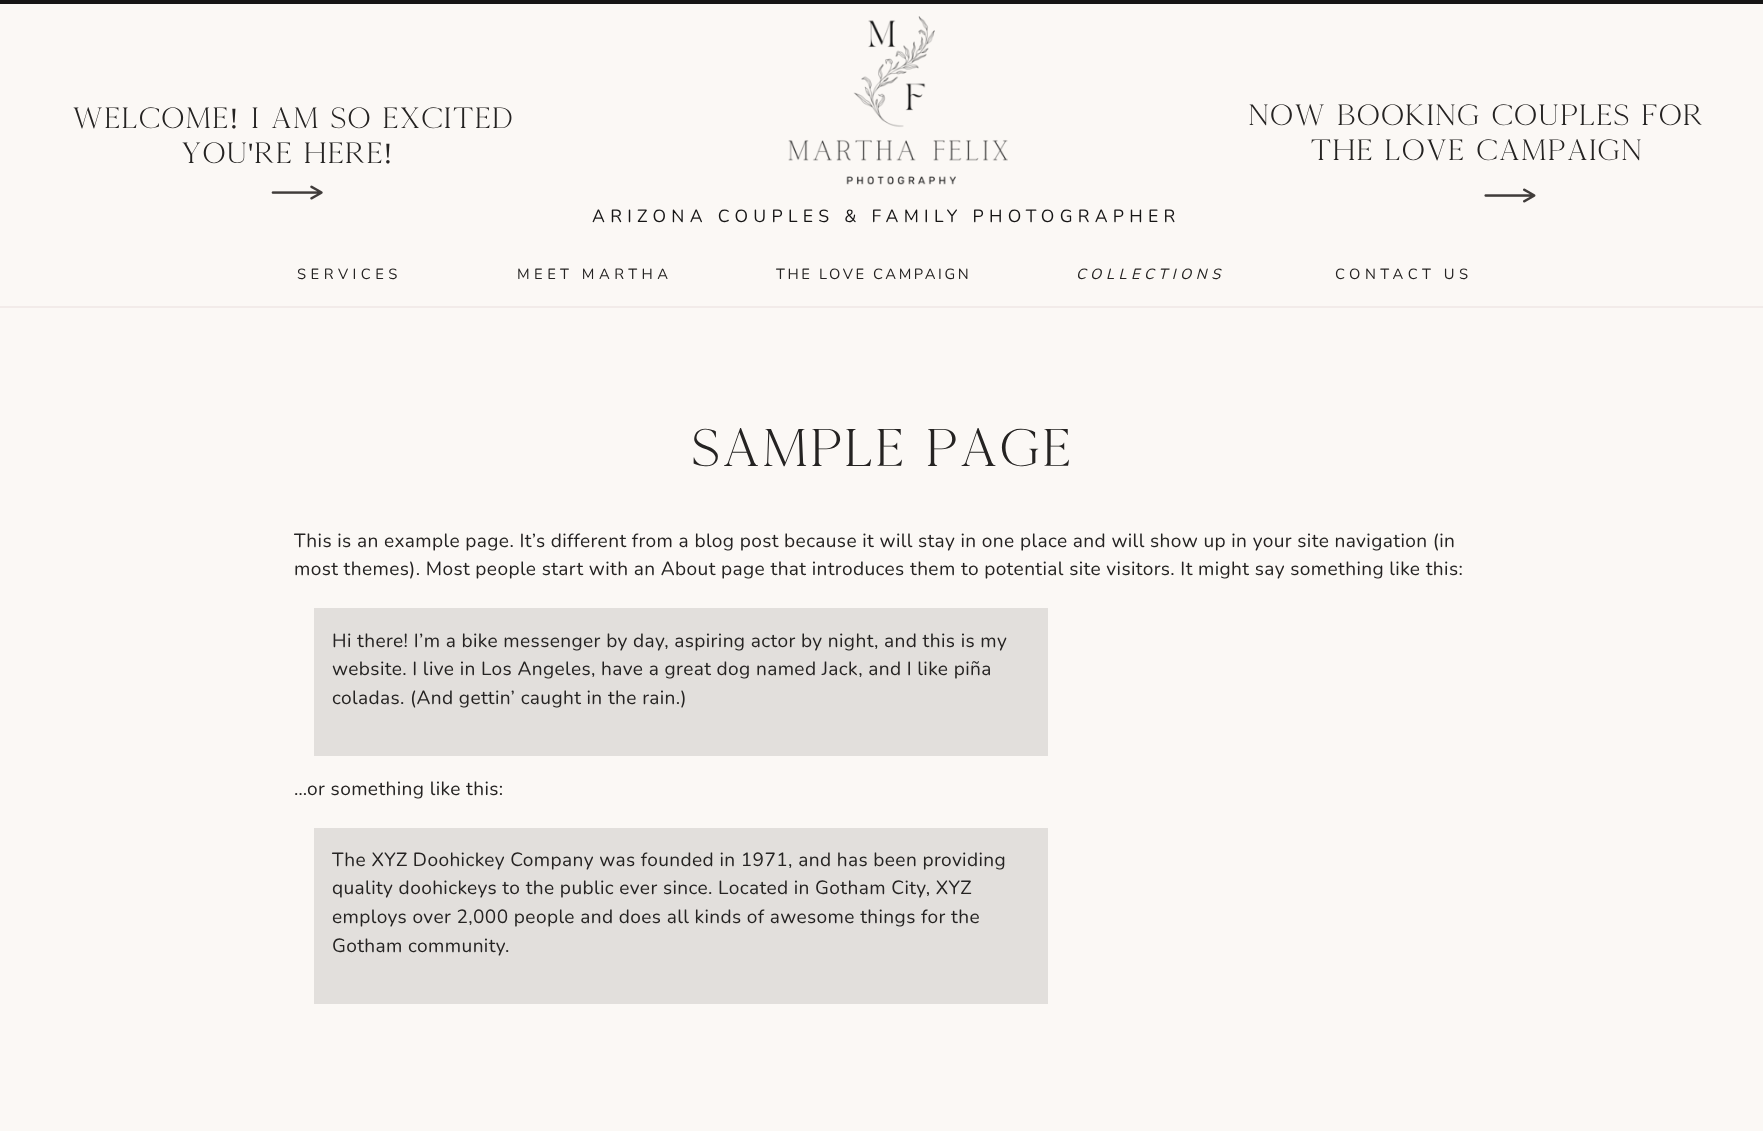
<?xml version="1.0" encoding="UTF-8"?>
<svg xmlns="http://www.w3.org/2000/svg" width="1763" height="1131">
    <rect width="100%" height="100%" fill="#FBF8F5"/>
    <rect x="0" y="0" width="1763" height="4" fill="#161515"/>
    <text x="72" y="128" font-family="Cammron" font-size="29.4" letter-spacing="0.6" fill="#252322">WELCOME</text>
    <text x="229" y="128" font-family="Liberation Serif" font-size="29.4" letter-spacing="0.6" fill="#252322">!</text>
    <text x="251" y="128" font-family="Cammron" font-size="29.4" letter-spacing="0.6" fill="#252322">I AM SO EXCITED</text>
    <text x="181" y="163" font-family="Cammron" font-size="29.4" letter-spacing="0.6" fill="#252322">YOU</text>
    <text x="248" y="163" font-family="Liberation Serif" font-size="29.4" letter-spacing="0.6" fill="#252322">'</text>
    <text x="254" y="163" font-family="Cammron" font-size="29.4" letter-spacing="0.6" fill="#252322">RE HERE</text>
    <text x="383" y="163" font-family="Liberation Serif" font-size="29.4" letter-spacing="0.6" fill="#252322">!</text>
    <image x="788" y="16" width="220" height="169" href="img_01.png"/>
    <text x="1248" y="125" font-family="Cammron" font-size="29.4" letter-spacing="0.6" fill="#252322">NOW BOOKING COUPLES FOR</text>
    <text x="1310" y="160" font-family="Cammron" font-size="29.4" letter-spacing="0.6" fill="#252322">THE LOVE CAMPAIGN</text>
    <image x="271" y="185" width="52" height="15" href="img_02.png"/>
    <image x="1484" y="188" width="52" height="15" href="img_03.png"/>
    <text x="592" y="222" font-family="Nunito" font-size="17.65" font-weight="200" letter-spacing="5.3" fill="#161515">ARIZONA COUPLES &amp; FAMILY PHOTOGRAPHER</text>
    <text x="297" y="279" font-family="Nunito" font-size="14.75" font-weight="200" letter-spacing="4.5" fill="#252322">SERVICES</text>
    <text x="517" y="279" font-family="Nunito" font-size="14.75" font-weight="200" letter-spacing="4.5" fill="#252322">MEET MARTHA</text>
    <text x="776" y="279" font-family="Nunito" font-size="14.75" font-weight="200" letter-spacing="2.6" fill="#252322">THE LOVE CAMPAIGN</text>
    <text x="1076" y="279" font-family="Nunito" font-size="14.75" font-weight="200" font-style="italic" letter-spacing="4.5" fill="#252322">COLLECTIONS</text>
    <text x="1335" y="279" font-family="Nunito" font-size="14.75" font-weight="200" letter-spacing="4.5" fill="#252322">CONTACT US</text>
    <rect x="0" y="306" width="1763" height="2" fill="#F2EBE9"/>
    <text x="691" y="466" font-family="Cammron" font-size="53" letter-spacing="1" fill="#252322">SAMPLE PAGE</text>
    <text font-family="Nunito" font-size="19.1" font-weight="200" letter-spacing="0.38" fill="#252322">
        <tspan x="294" y="547">This is an example page. It’s different from a blog post because it will stay in one place and will show up in your site navigation (in</tspan>
        <tspan x="294" y="575">most themes). Most people start with an About page that introduces them to potential site visitors. It might say something like this:</tspan>
    </text>
    <rect x="314" y="608" width="734" height="148" fill="#E2DFDC"/>
    <text font-family="Nunito" font-size="19.1" font-weight="200" letter-spacing="0.38" fill="#252322">
        <tspan x="332" y="647">Hi there! I’m a bike messenger by day, aspiring actor by night, and this is my</tspan>
        <tspan x="332" y="675">website. I live in Los Angeles, have a great dog named Jack, and I like piña</tspan>
        <tspan x="332" y="704">coladas. (And gettin’ caught in the rain.)</tspan>
    </text>
    <text x="294" y="795" font-family="Nunito" font-size="19.1" font-weight="200" letter-spacing="0.38" fill="#252322">…or something like this:</text>
    <rect x="314" y="828" width="734" height="176" fill="#E2DFDC"/>
    <text font-family="Nunito" font-size="19.1" font-weight="200" letter-spacing="0.38" fill="#252322">
        <tspan x="332" y="866">The XYZ Doohickey Company was founded in 1971, and has been providing</tspan>
        <tspan x="332" y="894">quality doohickeys to the public ever since. Located in Gotham City, XYZ</tspan>
        <tspan x="332" y="923">employs over 2,000 people and does all kinds of awesome things for the</tspan>
        <tspan x="332" y="952">Gotham community.</tspan>
    </text>
</svg>
